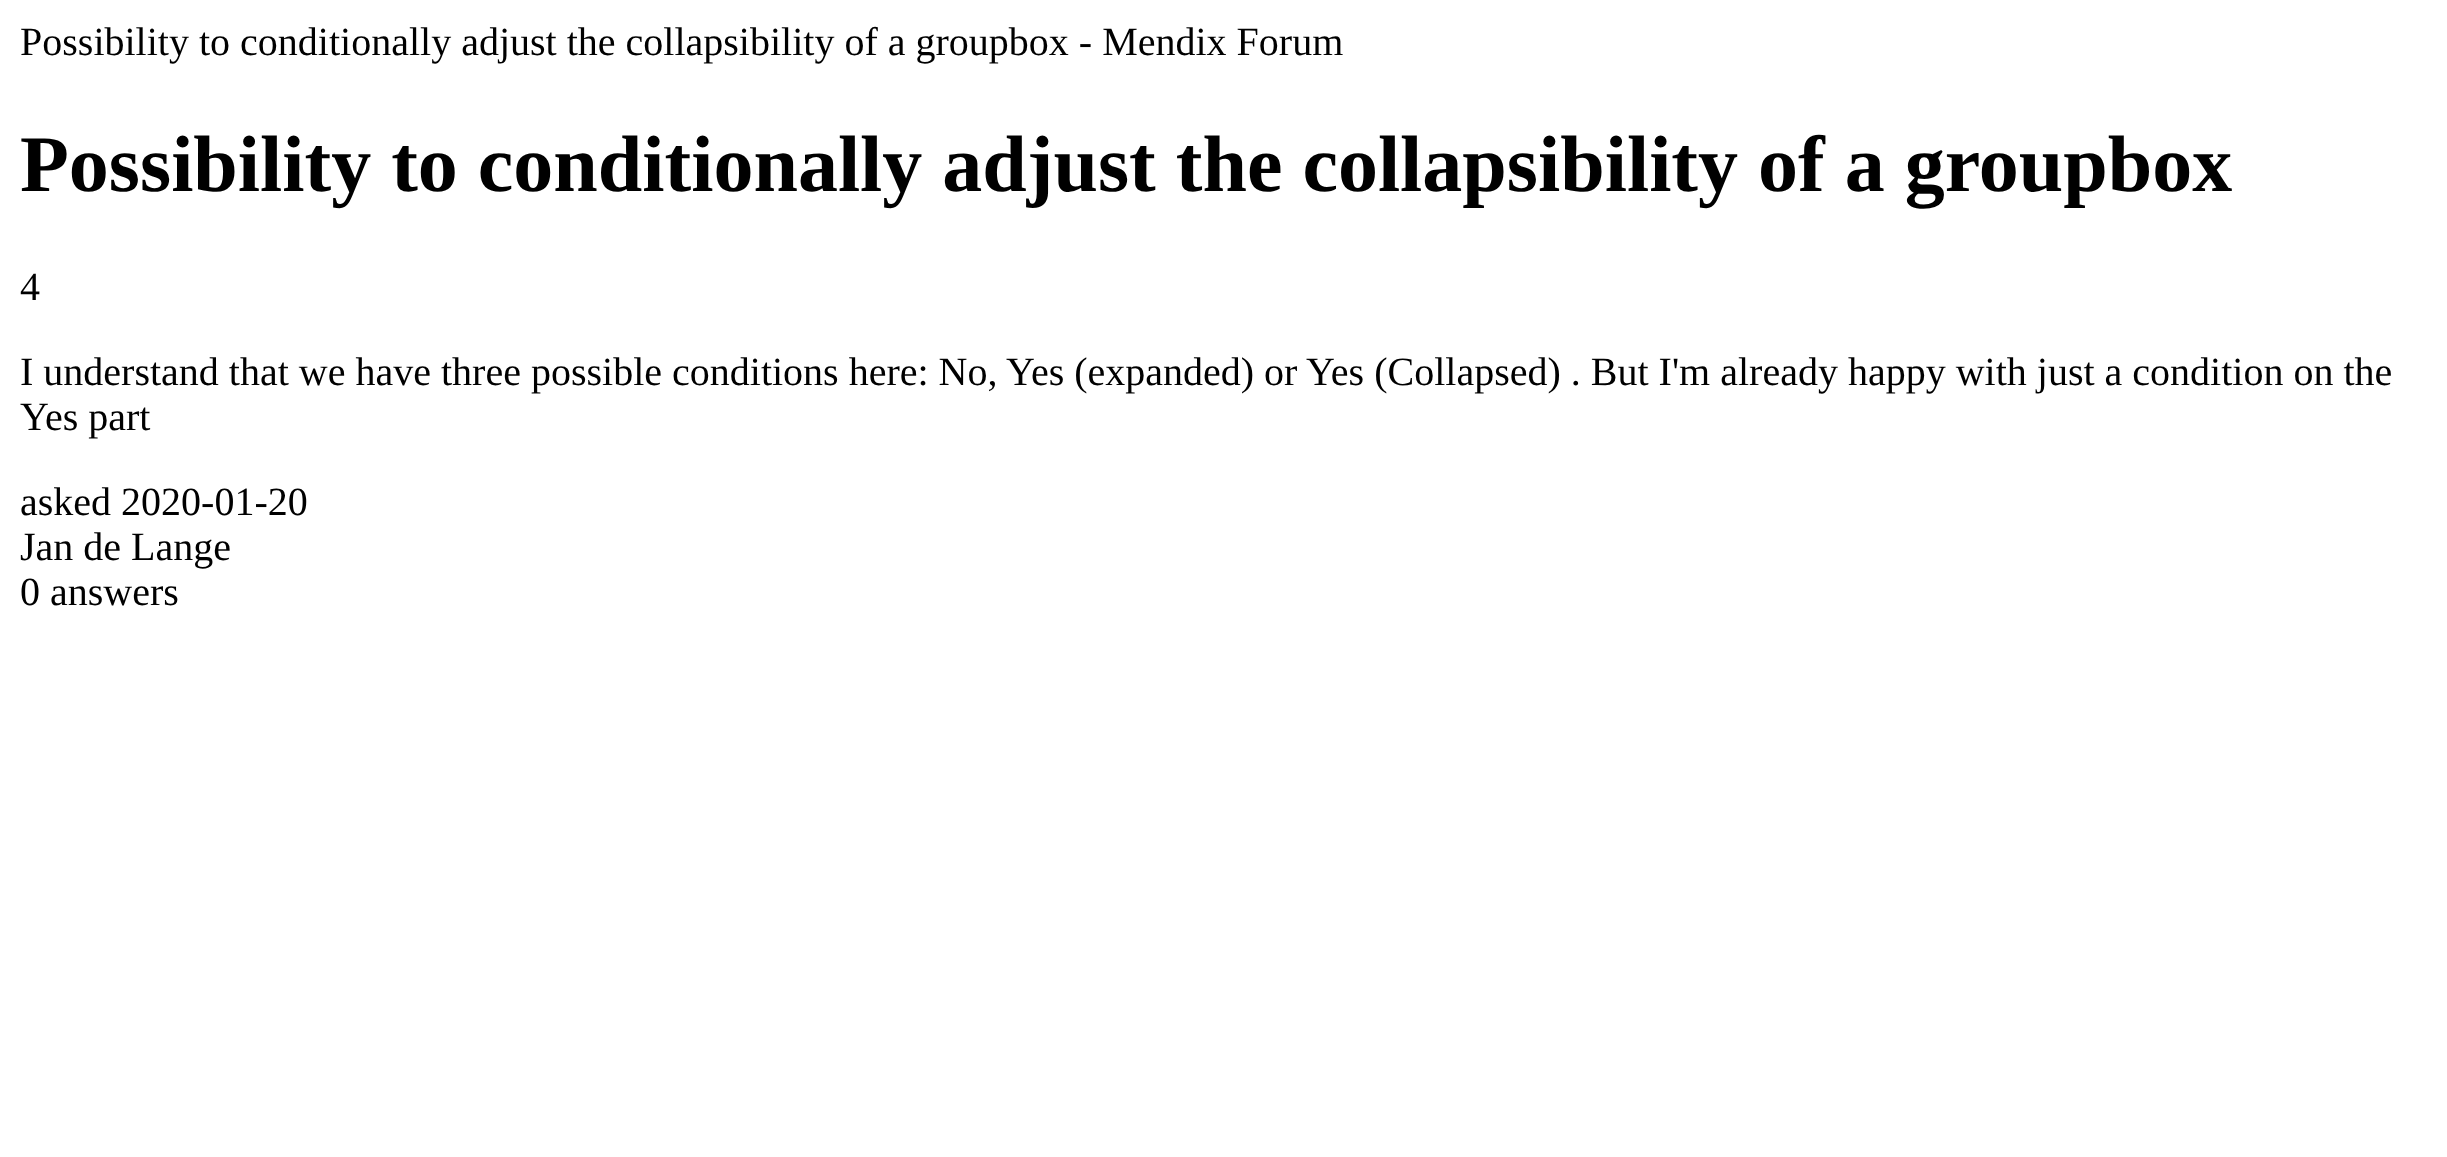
<?xml version="1.0" encoding="UTF-8"?>
<svg xmlns="http://www.w3.org/2000/svg" width="2447" height="1157">
    <rect width="100%" height="100%" fill="#FFFFFF"/>
    <text x="20" y="55" font-family="Liberation Serif" font-size="40" fill="#000000">Possibility to conditionally adjust the collapsibility of a groupbox - Mendix Forum</text>
    <text x="20" y="191" font-family="Liberation Serif" font-size="80" font-weight="700" fill="#000000">Possibility to conditionally adjust the collapsibility of a groupbox</text>
    <text x="20" y="300" font-family="Liberation Serif" font-size="40" fill="#000000">4</text>
    <text font-family="Liberation Serif" font-size="40" fill="#000000">
        <tspan x="20" y="385">I understand that we have three possible conditions here: No, Yes (expanded) or Yes (Collapsed) . But I'm already happy with just a condition on the</tspan>
        <tspan x="20" y="430">Yes part</tspan>
    </text>
    <text font-family="Liberation Serif" font-size="40" fill="#000000">
        <tspan x="20" y="515">asked 2020-01-20</tspan>
        <tspan x="20" y="560">Jan de Lange</tspan>
        <tspan x="20" y="605">0 answers</tspan>
    </text>
</svg>
